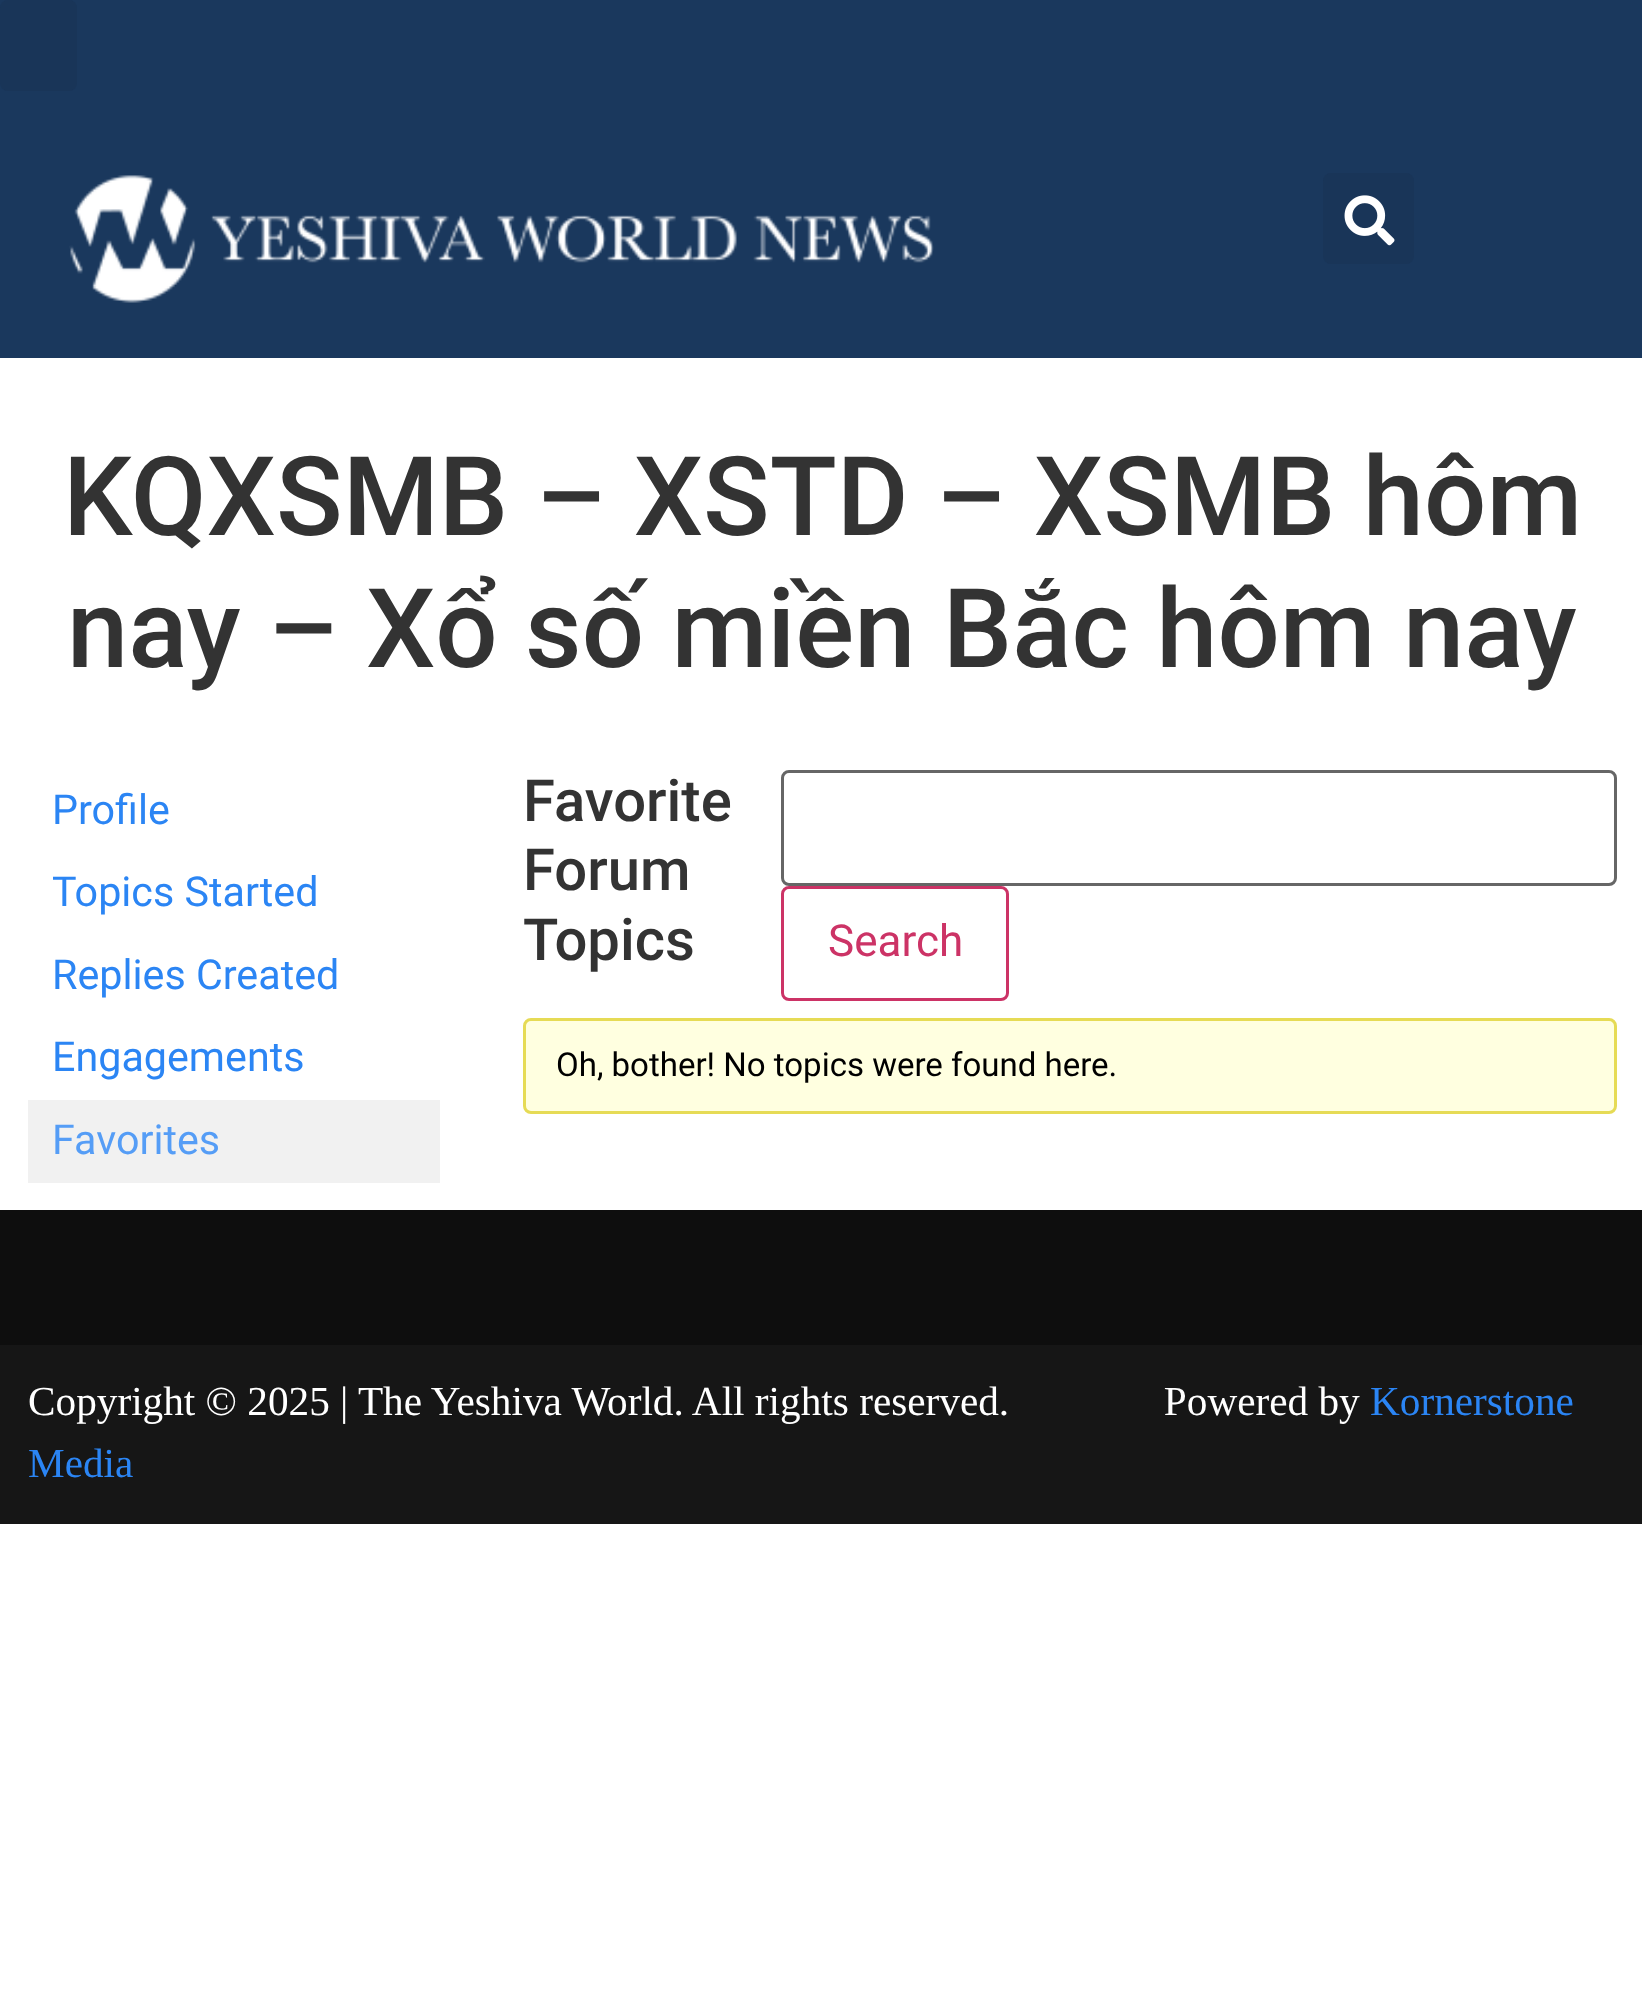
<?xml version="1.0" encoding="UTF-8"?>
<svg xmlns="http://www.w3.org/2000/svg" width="1642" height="1993">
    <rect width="100%" height="100%" fill="#FFFFFF"/>
    <rect x="0" y="0" width="1642" height="358" fill="#1A385D"/>
    <rect x="0" y="0" width="77" height="91" rx="8" fill="#193558"/>
    <image x="69" y="175" width="865" height="128" href="img_01.png"/>
    <rect x="1323" y="173" width="91" height="91" rx="8" fill="#193558"/>
    <image x="1344" y="195" width="51" height="51" href="img_02.png"/>
    <text x="63" y="535" font-family="Roboto" font-size="110" font-weight="500" fill="#333333">KQXSMB – XSTD – XSMB hôm</text>
    <text x="67" y="667" font-family="Roboto" font-size="110" font-weight="500" fill="#333333">nay – Xổ số miền Bắc hôm nay</text>
    <text font-family="Roboto" font-size="41.25" fill="#2B85F4">
        <tspan x="52" y="824">Profile</tspan>
        <tspan x="52" y="906">Topics Started</tspan>
    </text>
    <text font-family="Roboto" font-size="41.25" fill="#2B85F4">
        <tspan x="52" y="989">Replies Created</tspan>
        <tspan x="52" y="1071">Engagements</tspan>
    </text>
    <rect x="28" y="1100" width="412" height="83" fill="#F1F1F1"/>
    <text x="52" y="1154" font-family="Roboto" font-size="41.25" fill="#559DF6">Favorites</text>
    <text font-family="Roboto" font-size="58" font-weight="500" fill="#333333">
        <tspan x="523" y="821">Favorite</tspan>
        <tspan x="523" y="890">Forum</tspan>
        <tspan x="523" y="960">Topics</tspan>
    </text>
    <rect x="782.5" y="771.5" width="833" height="113" rx="6.5" fill="none" stroke="#666666" stroke-width="3"/>
    <rect x="782.5" y="887.5" width="225" height="112" rx="6.5" fill="none" stroke="#CC3366" stroke-width="3"/>
    <text x="828" y="956" font-family="Roboto" font-size="44" fill="#CC3366">Search</text>
    <rect x="524.5" y="1019.5" width="1091" height="93" rx="6.5" fill="#FFFFE0" stroke="#E6DB55" stroke-width="3"/>
    <text x="556" y="1076" font-family="Roboto" font-size="33" fill="#000000">Oh, bother! No topics were found here.</text>
    <rect x="0" y="1210" width="1642" height="135" fill="#0E0E0E"/>
    <rect x="0" y="1345" width="1642" height="179" fill="#161616"/>
    <text x="28" y="1415" font-family="Liberation Serif" font-size="41.25" fill="#FFFFFF" xml:space="preserve">Copyright © 2025 | The Yeshiva World. All rights reserved.               Powered by</text>
    <text x="1370" y="1415" font-family="Liberation Serif" font-size="41.25" fill="#2B85F4">Kornerstone</text>
    <text x="28" y="1477" font-family="Liberation Serif" font-size="41.25" fill="#2B85F4">Media</text>
</svg>
